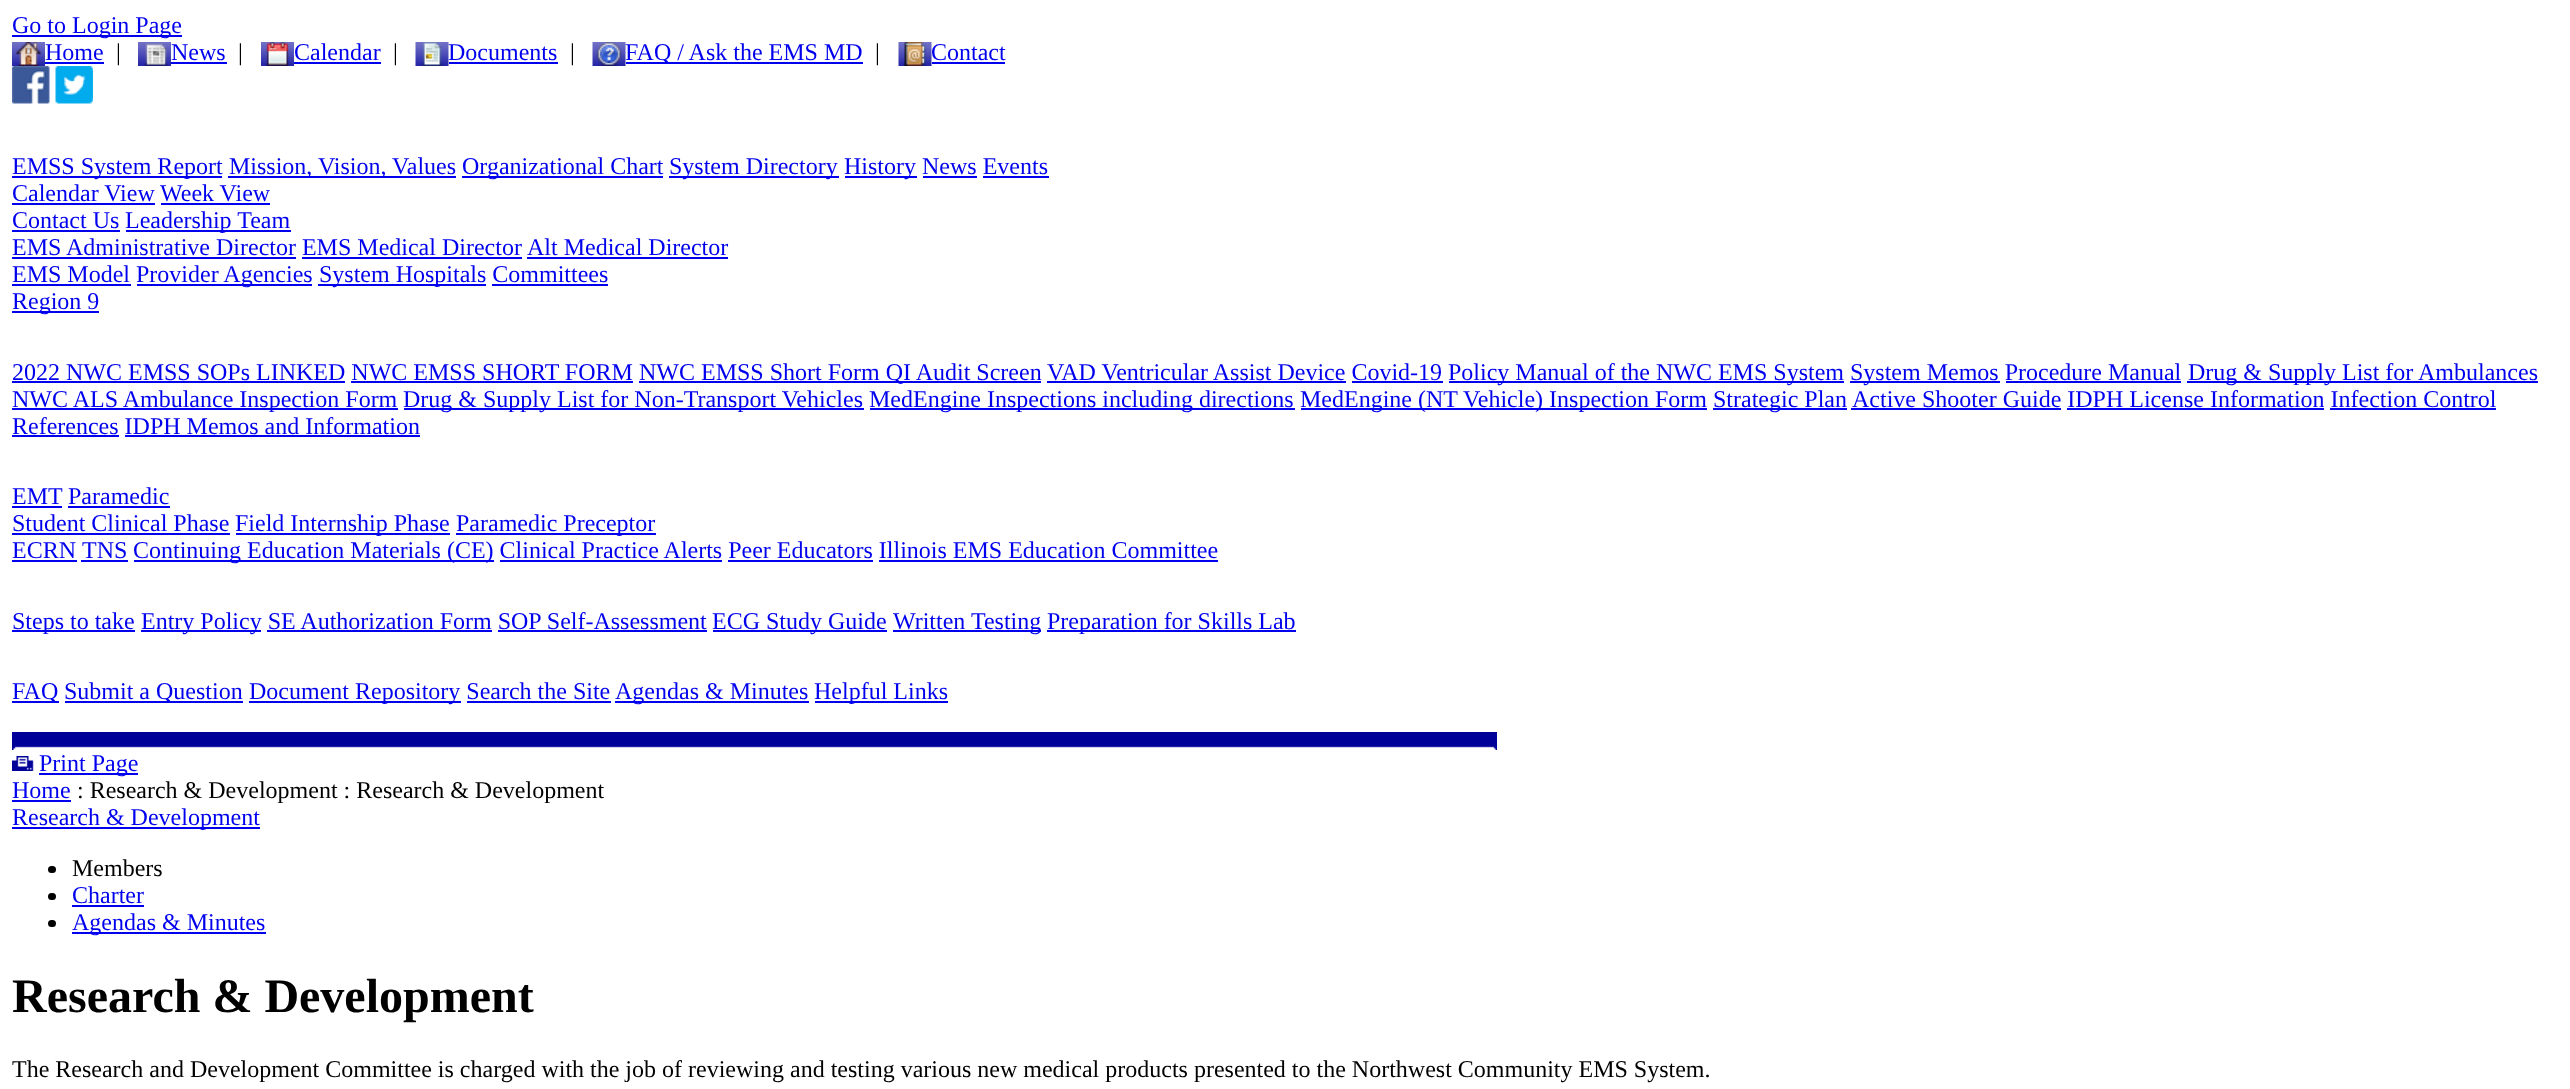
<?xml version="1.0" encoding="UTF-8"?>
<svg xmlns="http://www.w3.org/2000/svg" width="2570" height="1089">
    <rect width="100%" height="100%" fill="#FFFFFF"/>
    <rect x="12" y="35" width="170" height="2" fill="#0000EE"/>
    <text x="12" y="33" font-family="Liberation Serif" font-size="24" fill="#0000EE">Go to Login Page</text>
    <image x="12" y="42" width="33" height="24" href="img_01.png"/>
    <text x="45" y="60" font-family="Liberation Serif" font-size="24" fill="#0000EE">Home</text>
    <rect x="45" y="62" width="59" height="2" fill="#0000EE"/>
    <text x="116" y="60" font-family="Liberation Serif" font-size="24" fill="#000000">|</text>
    <image x="138" y="42" width="33" height="24" href="img_02.png"/>
    <text x="171" y="60" font-family="Liberation Serif" font-size="24" fill="#0000EE">News</text>
    <rect x="171" y="62" width="56" height="2" fill="#0000EE"/>
    <text x="238" y="60" font-family="Liberation Serif" font-size="24" fill="#000000">|</text>
    <image x="261" y="42" width="33" height="24" href="img_03.png"/>
    <text x="294" y="60" font-family="Liberation Serif" font-size="24" fill="#0000EE">Calendar</text>
    <rect x="294" y="62" width="87" height="2" fill="#0000EE"/>
    <text x="393" y="60" font-family="Liberation Serif" font-size="24" fill="#000000">|</text>
    <image x="415" y="42" width="34" height="24" href="img_04.png"/>
    <text x="448" y="60" font-family="Liberation Serif" font-size="24" fill="#0000EE">Documents</text>
    <rect x="449" y="62" width="109" height="2" fill="#0000EE"/>
    <text x="570" y="60" font-family="Liberation Serif" font-size="24" fill="#000000">|</text>
    <image x="592" y="42" width="34" height="24" href="img_05.png"/>
    <rect x="626" y="62" width="237" height="2" fill="#0000EE"/>
    <text x="625" y="60" font-family="Liberation Serif" font-size="24" fill="#0000EE">FAQ / Ask the EMS MD</text>
    <text x="875" y="60" font-family="Liberation Serif" font-size="24" fill="#000000">|</text>
    <image x="898" y="42" width="34" height="24" href="img_06.png"/>
    <text x="931" y="60" font-family="Liberation Serif" font-size="24" fill="#0000EE">Contact</text>
    <rect x="932" y="62" width="73" height="2" fill="#0000EE"/>
    <image x="12" y="66" width="38" height="38" href="img_07.png"/>
    <image x="55" y="66" width="38" height="38" href="img_08.png"/>
    <rect x="12" y="176" width="210" height="2" fill="#0000EE"/>
    <text x="12" y="174" font-family="Liberation Serif" font-size="24" fill="#0000EE">EMSS System Report</text>
    <rect x="228" y="176" width="228" height="2" fill="#0000EE"/>
    <text x="229" y="174" font-family="Liberation Serif" font-size="24" fill="#0000EE">Mission, Vision, Values</text>
    <rect x="462" y="176" width="201" height="2" fill="#0000EE"/>
    <text x="462" y="174" font-family="Liberation Serif" font-size="24" fill="#0000EE">Organizational Chart</text>
    <rect x="669" y="176" width="170" height="2" fill="#0000EE"/>
    <text x="669" y="174" font-family="Liberation Serif" font-size="24" fill="#0000EE">System Directory</text>
    <rect x="845" y="176" width="72" height="2" fill="#0000EE"/>
    <text x="844" y="174" font-family="Liberation Serif" font-size="24" fill="#0000EE">History News Events</text>
    <rect x="923" y="176" width="54" height="2" fill="#0000EE"/>
    <rect x="983" y="176" width="66" height="2" fill="#0000EE"/>
    <text x="12" y="201" font-family="Liberation Serif" font-size="24" fill="#0000EE">Calendar View</text>
    <rect x="12" y="203" width="143" height="2" fill="#0000EE"/>
    <text x="160" y="201" font-family="Liberation Serif" font-size="24" fill="#0000EE">Week View</text>
    <rect x="161" y="203" width="109" height="2" fill="#0000EE"/>
    <text x="12" y="228" font-family="Liberation Serif" font-size="24" fill="#0000EE">Contact Us</text>
    <rect x="12" y="230" width="108" height="2" fill="#0000EE"/>
    <rect x="126" y="230" width="165" height="2" fill="#0000EE"/>
    <text x="125" y="228" font-family="Liberation Serif" font-size="24" fill="#0000EE">Leadership Team</text>
    <text x="12" y="255" font-family="Liberation Serif" font-size="24" fill="#0000EE">EMS Administrative Director EMS Medical Director</text>
    <rect x="12" y="257" width="284" height="2" fill="#0000EE"/>
    <text x="527" y="255" font-family="Liberation Serif" font-size="24" fill="#0000EE">Alt Medical Director</text>
    <rect x="527" y="257" width="201" height="2" fill="#0000EE"/>
    <rect x="302" y="257" width="220" height="2" fill="#0000EE"/>
    <text x="12" y="282" font-family="Liberation Serif" font-size="24" fill="#0000EE">EMS Model</text>
    <rect x="12" y="284" width="119" height="2" fill="#0000EE"/>
    <rect x="137" y="284" width="175" height="2" fill="#0000EE"/>
    <text x="136" y="282" font-family="Liberation Serif" font-size="24" fill="#0000EE">Provider Agencies</text>
    <rect x="318" y="284" width="168" height="2" fill="#0000EE"/>
    <text x="319" y="282" font-family="Liberation Serif" font-size="24" fill="#0000EE">System Hospitals Committees</text>
    <rect x="492" y="284" width="116" height="2" fill="#0000EE"/>
    <rect x="12" y="311" width="87" height="2" fill="#0000EE"/>
    <text x="12" y="309" font-family="Liberation Serif" font-size="24" fill="#0000EE">Region 9</text>
    <text x="12" y="380" font-family="Liberation Serif" font-size="24" fill="#0000EE">2022 NWC EMSS SOPs LINKED NWC EMSS SHORT FORM</text>
    <rect x="12" y="381" width="333" height="2" fill="#0000EE"/>
    <rect x="639" y="381" width="402" height="2" fill="#0000EE"/>
    <text x="639" y="380" font-family="Liberation Serif" font-size="24" fill="#0000EE">NWC EMSS Short Form QI Audit Screen</text>
    <text x="1047" y="380" font-family="Liberation Serif" font-size="24" fill="#0000EE">VAD Ventricular Assist Device Covid-19</text>
    <rect x="1047" y="381" width="299" height="2" fill="#0000EE"/>
    <rect x="1449" y="381" width="395" height="2" fill="#0000EE"/>
    <text x="1448" y="380" font-family="Liberation Serif" font-size="24" fill="#0000EE">Policy Manual of the NWC EMS System</text>
    <rect x="1850" y="381" width="150" height="2" fill="#0000EE"/>
    <text x="1850" y="380" font-family="Liberation Serif" font-size="24" fill="#0000EE">System Memos Procedure Manual</text>
    <rect x="2187" y="381" width="351" height="2" fill="#0000EE"/>
    <text x="2188" y="380" font-family="Liberation Serif" font-size="24" fill="#0000EE">Drug &amp; Supply List for Ambulances</text>
    <rect x="351" y="381" width="282" height="2" fill="#0000EE"/>
    <rect x="1352" y="381" width="91" height="2" fill="#0000EE"/>
    <rect x="2006" y="381" width="175" height="2" fill="#0000EE"/>
    <rect x="12" y="408" width="386" height="2" fill="#0000EE"/>
    <text x="12" y="407" font-family="Liberation Serif" font-size="24" fill="#0000EE">NWC ALS Ambulance Inspection Form</text>
    <rect x="404" y="408" width="460" height="2" fill="#0000EE"/>
    <text x="403" y="407" font-family="Liberation Serif" font-size="24" fill="#0000EE">Drug &amp; Supply List for Non-Transport Vehicles</text>
    <rect x="870" y="408" width="425" height="2" fill="#0000EE"/>
    <text x="869" y="407" font-family="Liberation Serif" font-size="24" fill="#0000EE">MedEngine Inspections including directions</text>
    <rect x="1301" y="408" width="406" height="2" fill="#0000EE"/>
    <text x="1300" y="407" font-family="Liberation Serif" font-size="24" fill="#0000EE">MedEngine (NT Vehicle) Inspection Form</text>
    <rect x="1713" y="408" width="134" height="2" fill="#0000EE"/>
    <text x="1713" y="407" font-family="Liberation Serif" font-size="24" fill="#0000EE">Strategic Plan</text>
    <text x="1852" y="407" font-family="Liberation Serif" font-size="24" fill="#0000EE">Active Shooter Guide IDPH License Information Infection Control</text>
    <rect x="1851" y="408" width="210" height="2" fill="#0000EE"/>
    <rect x="2067" y="408" width="257" height="2" fill="#0000EE"/>
    <text x="12" y="434" font-family="Liberation Serif" font-size="24" fill="#0000EE">References IDPH Memos and Information</text>
    <rect x="2330" y="408" width="166" height="2" fill="#0000EE"/>
    <rect x="12" y="435" width="107" height="2" fill="#0000EE"/>
    <rect x="125" y="435" width="295" height="2" fill="#0000EE"/>
    <text x="12" y="504" font-family="Liberation Serif" font-size="24" fill="#0000EE">EMT</text>
    <rect x="12" y="506" width="50" height="2" fill="#0000EE"/>
    <text x="68" y="504" font-family="Liberation Serif" font-size="24" fill="#0000EE">Paramedic</text>
    <rect x="68" y="506" width="102" height="2" fill="#0000EE"/>
    <text x="12" y="531" font-family="Liberation Serif" font-size="24" fill="#0000EE">Student Clinical Phase</text>
    <rect x="12" y="533" width="218" height="2" fill="#0000EE"/>
    <rect x="236" y="533" width="214" height="2" fill="#0000EE"/>
    <text x="235" y="531" font-family="Liberation Serif" font-size="24" fill="#0000EE">Field Internship Phase</text>
    <rect x="456" y="533" width="200" height="2" fill="#0000EE"/>
    <text x="456" y="531" font-family="Liberation Serif" font-size="24" fill="#0000EE">Paramedic Preceptor</text>
    <text x="12" y="558" font-family="Liberation Serif" font-size="24" fill="#0000EE">ECRN</text>
    <rect x="12" y="560" width="65" height="2" fill="#0000EE"/>
    <text x="82" y="558" font-family="Liberation Serif" font-size="24" fill="#0000EE">TNS</text>
    <rect x="81" y="560" width="47" height="2" fill="#0000EE"/>
    <rect x="134" y="560" width="360" height="2" fill="#0000EE"/>
    <text x="133" y="558" font-family="Liberation Serif" font-size="24" fill="#0000EE">Continuing Education Materials (CE) Clinical Practice Alerts Peer Educators Illinois EMS Education Committee</text>
    <rect x="500" y="560" width="222" height="2" fill="#0000EE"/>
    <rect x="728" y="560" width="145" height="2" fill="#0000EE"/>
    <rect x="879" y="560" width="339" height="2" fill="#0000EE"/>
    <rect x="12" y="630" width="123" height="2" fill="#0000EE"/>
    <text x="12" y="629" font-family="Liberation Serif" font-size="24" fill="#0000EE">Steps to take</text>
    <rect x="141" y="630" width="120" height="2" fill="#0000EE"/>
    <text x="141" y="629" font-family="Liberation Serif" font-size="24" fill="#0000EE">Entry Policy SE Authorization Form SOP Self-Assessment</text>
    <rect x="713" y="630" width="174" height="2" fill="#0000EE"/>
    <text x="712" y="629" font-family="Liberation Serif" font-size="24" fill="#0000EE">ECG Study Guide</text>
    <rect x="893" y="630" width="148" height="2" fill="#0000EE"/>
    <text x="893" y="629" font-family="Liberation Serif" font-size="24" fill="#0000EE">Written Testing</text>
    <rect x="1047" y="630" width="249" height="2" fill="#0000EE"/>
    <text x="1047" y="629" font-family="Liberation Serif" font-size="24" fill="#0000EE">Preparation for Skills Lab</text>
    <rect x="267" y="630" width="225" height="2" fill="#0000EE"/>
    <rect x="498" y="630" width="209" height="2" fill="#0000EE"/>
    <rect x="12" y="701" width="47" height="2" fill="#0000EE"/>
    <text x="12" y="699" font-family="Liberation Serif" font-size="24" fill="#0000EE">FAQ</text>
    <rect x="65" y="701" width="178" height="2" fill="#0000EE"/>
    <text x="64" y="699" font-family="Liberation Serif" font-size="24" fill="#0000EE">Submit a Question</text>
    <rect x="249" y="701" width="212" height="2" fill="#0000EE"/>
    <text x="249" y="699" font-family="Liberation Serif" font-size="24" fill="#0000EE">Document Repository Search the Site</text>
    <rect x="615" y="701" width="194" height="2" fill="#0000EE"/>
    <text x="615" y="699" font-family="Liberation Serif" font-size="24" fill="#0000EE">Agendas &amp; Minutes</text>
    <rect x="815" y="701" width="133" height="2" fill="#0000EE"/>
    <text x="814" y="699" font-family="Liberation Serif" font-size="24" fill="#0000EE">Helpful Links</text>
    <rect x="467" y="701" width="144" height="2" fill="#0000EE"/>
    <image x="12" y="732" width="1485" height="18" href="img_09.png"/>
    <image x="12" y="756" width="22" height="15" href="img_10.png"/>
    <rect x="39" y="773" width="99" height="2" fill="#0000EE"/>
    <text x="39" y="771" font-family="Liberation Serif" font-size="24" fill="#0000EE">Print Page</text>
    <text x="12" y="798" font-family="Liberation Serif" font-size="24" fill="#0000EE">Home</text>
    <rect x="12" y="800" width="59" height="2" fill="#0000EE"/>
    <text x="77" y="798" font-family="Liberation Serif" font-size="24" fill="#000000">: Research &amp; Development : Research &amp; Development</text>
    <rect x="12" y="827" width="248" height="2" fill="#0000EE"/>
    <text x="12" y="825" font-family="Liberation Serif" font-size="24" fill="#0000EE">Research &amp; Development</text>
    <rect x="48" y="866" width="8" height="7" rx="3.5" fill="#000000"/>
    <text x="72" y="876" font-family="Liberation Serif" font-size="24" fill="#000000">Members</text>
    <rect x="48" y="893" width="8" height="7" rx="3.5" fill="#000000"/>
    <text x="72" y="903" font-family="Liberation Serif" font-size="24" fill="#0000EE">Charter</text>
    <rect x="72" y="905" width="72" height="2" fill="#0000EE"/>
    <rect x="48" y="920" width="8" height="7" rx="3.5" fill="#000000"/>
    <rect x="72" y="932" width="194" height="2" fill="#0000EE"/>
    <text x="72" y="930" font-family="Liberation Serif" font-size="24" fill="#0000EE">Agendas &amp; Minutes</text>
    <text x="12" y="1012" font-family="Liberation Serif" font-size="48" font-weight="700" fill="#000000">Research &amp; Development</text>
    <text x="12" y="1077" font-family="Liberation Serif" font-size="24" fill="#000000">The Research and Development Committee is charged with the job of reviewing and testing various new medical products presented to the Northwest Community EMS System.</text>
</svg>
